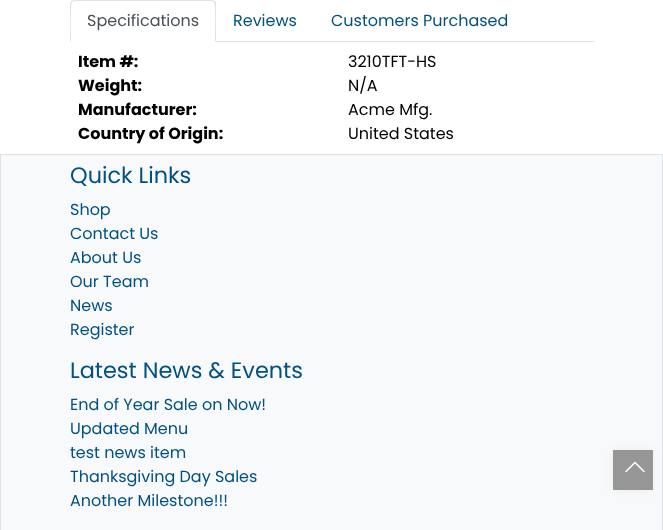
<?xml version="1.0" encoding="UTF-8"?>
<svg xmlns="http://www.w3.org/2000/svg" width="663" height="530">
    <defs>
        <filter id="blur1" x="-50%" y="-200%" width="200%" height="500%"><feGaussianBlur stdDeviation="5"/></filter>
    </defs>
    <rect width="100%" height="100%" fill="#FFFFFF"/>
    <rect x="216" y="41" width="378" height="1" fill="#DEE2E6"/>
    <path d="M 74 0 L 71 1 L 72 2 L 74 1 H 212 L 214 2 L 215 1 L 212 0 Z" fill="#DEE2E6"/>
    <path d="M 216 42 V 4 C 216 3 216 2 215 1 L 214 2 C 216 4 215 36 215 41 Z" fill="#DEE2E6"/>
    <path d="M 216 42 L 215 41 H 71 L 70 42 Z" fill="#FFFFFF"/>
    <path d="M 70 42 L 71 41 C 71 36 70 4 72 2 L 71 1 L 70 4 Z" fill="#DEE2E6"/>
    <text x="87" y="26" font-family="Poppins" font-size="16" fill="#495057">Specifications</text>
    <text x="233" y="26" font-family="Poppins" font-size="16" fill="#005181">Reviews</text>
    <text x="331" y="26" font-family="Poppins" font-size="16" fill="#005181">Customers Purchased</text>
    <text x="78" y="67" font-family="Poppins" font-size="16" font-weight="700" fill="#000000">Item #:</text>
    <text x="348" y="67" font-family="Poppins" font-size="16" fill="#000000">3210TFT-HS</text>
    <text x="78" y="91" font-family="Poppins" font-size="16" font-weight="700" fill="#000000">Weight:</text>
    <text x="348" y="91" font-family="Poppins" font-size="16" fill="#000000">N/A</text>
    <text x="78" y="115" font-family="Poppins" font-size="16" font-weight="700" fill="#000000">Manufacturer:</text>
    <text x="348" y="115" font-family="Poppins" font-size="16" fill="#000000">Acme Mfg.</text>
    <text x="78" y="139" font-family="Poppins" font-size="16" font-weight="700" fill="#000000">Country of Origin:</text>
    <text x="348" y="139" font-family="Poppins" font-size="16" fill="#000000">United States</text>
    <rect x="0.5" y="154.5" width="662" height="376" fill="#F8F9FA" stroke="#DEE2E6"/>
    <text x="70" y="183" font-family="Poppins" font-size="22.4" fill="#005181">Quick Links</text>
    <text font-family="Poppins" font-size="16" fill="#005181">
        <tspan x="70" y="215">Shop</tspan>
        <tspan x="70" y="239">Contact Us</tspan>
        <tspan x="70" y="263">About Us</tspan>
        <tspan x="70" y="287">Our Team</tspan>
        <tspan x="70" y="311">News</tspan>
        <tspan x="70" y="335">Register</tspan>
    </text>
    <text x="70" y="378" font-family="Poppins" font-size="22.4" fill="#005181">Latest News &amp; Events</text>
    <text font-family="Poppins" font-size="16" fill="#005181">
        <tspan x="70" y="410">End of Year Sale on Now!</tspan>
        <tspan x="70" y="434">Updated Menu</tspan>
        <tspan x="70" y="458">test news item</tspan>
        <tspan x="70" y="482">Thanksgiving Day Sales</tspan>
        <tspan x="70" y="506">Another Milestone!!!</tspan>
    </text>
    <rect x="613" y="450" width="40" height="40" fill="#000000" fill-opacity="0.05" filter="url(#blur1)"/>
    <rect x="613" y="450" width="40" height="40" fill="#969696"/>
    <image x="625" y="461" width="20" height="12" href="img_01.png"/>
</svg>
